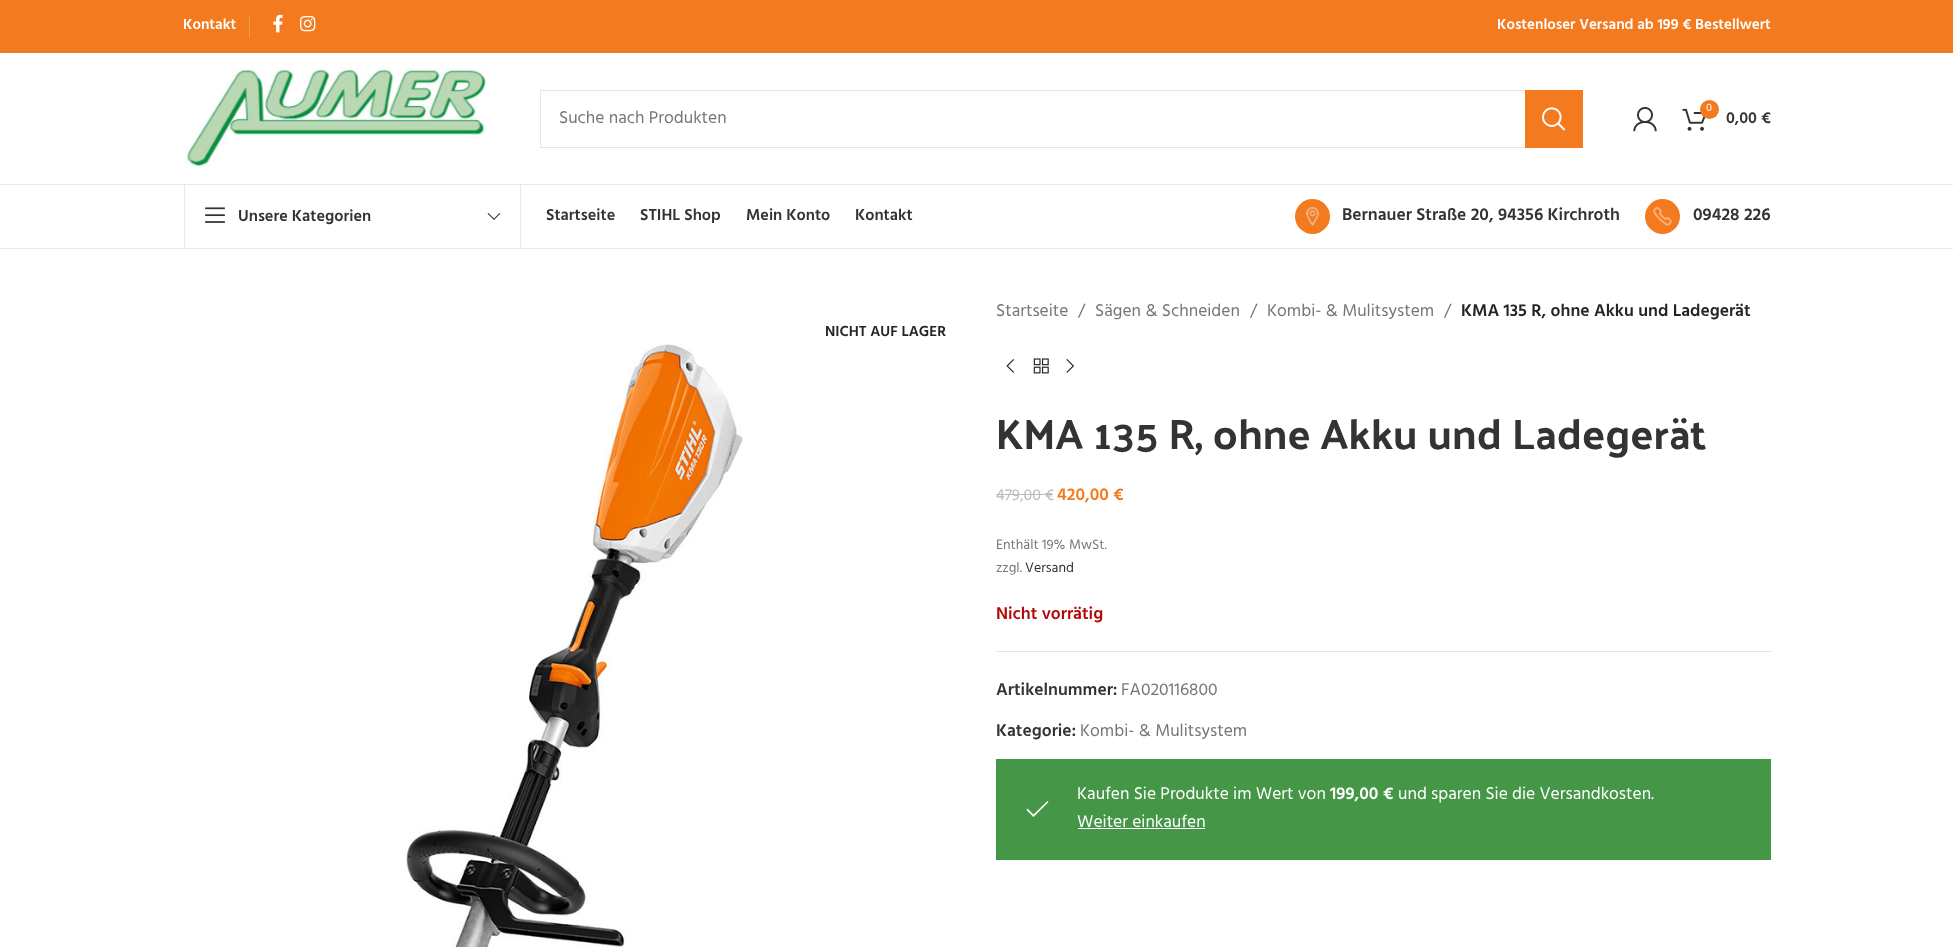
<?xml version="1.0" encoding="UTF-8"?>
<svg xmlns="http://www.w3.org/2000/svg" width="1953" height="947">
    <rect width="100%" height="100%" fill="#FFFFFF"/>
    <rect x="0" y="0" width="1953" height="53" fill="#F37A1F"/>
    <rect x="0" y="51" width="1953" height="1" fill="#DC7B31"/>
    <text x="183" y="29" font-family="Hind" font-size="15" font-weight="600" fill="#FFFFFF">Kontakt</text>
    <rect x="249" y="15" width="1" height="23" fill="#F69B57"/>
    <image x="273" y="14" width="10" height="19" href="img_01.png"/>
    <image x="300" y="15" width="16" height="17" href="img_02.png"/>
    <text x="1497" y="29" font-family="Hind" font-size="15" font-weight="600" fill="#FFFFFF">Kostenloser Versand ab 199 € Bestellwert</text>
    <rect x="0" y="184" width="1953" height="1" fill="#E8E8E8"/>
    <image x="184" y="67" width="303" height="100" href="img_03.png"/>
    <rect x="540.5" y="90.5" width="1042" height="57" fill="none" stroke="#E6E6E6"/>
    <text x="559" y="123" font-family="Hind" font-size="17.5" fill="#767676">Suche nach Produkten</text>
    <rect x="1525" y="90" width="58" height="58" fill="#F37A1F"/>
    <image x="1542" y="107" width="24" height="24" href="img_04.png"/>
    <image x="1633" y="107" width="24" height="25" href="img_05.png"/>
    <image x="1682" y="108" width="24" height="23" href="img_06.png"/>
    <circle cx="1709.5" cy="109.5" r="9.5" fill="#F37A1F"/>
    <text x="1706" y="111" font-family="Hind" font-size="11" fill="#FFFFFF">0</text>
    <text x="1726" y="123" font-family="Hind" font-size="16.25" font-weight="600" fill="#333333">0,00 €</text>
    <rect x="0" y="248" width="1953" height="1" fill="#E8E8E8"/>
    <rect x="184.5" y="184.5" width="336" height="64" fill="none" stroke="#E8E8E8"/>
    <image x="205" y="207" width="20" height="16" href="img_07.png"/>
    <text x="238" y="221" font-family="Hind" font-size="16.25" font-weight="600" fill="#333333">Unsere Kategorien</text>
    <image x="487" y="213" width="14" height="7" href="img_08.png"/>
    <text x="546" y="220" font-family="Hind" font-size="16.25" font-weight="600" fill="#333333">Startseite</text>
    <text x="640" y="220" font-family="Hind" font-size="16.25" font-weight="600" fill="#333333">STIHL Shop</text>
    <text x="746" y="220" font-family="Hind" font-size="16.25" font-weight="600" fill="#333333">Mein Konto</text>
    <text x="855" y="220" font-family="Hind" font-size="16.25" font-weight="600" fill="#333333">Kontakt</text>
    <circle cx="1312.5" cy="216.5" r="17.5" fill="#F37A1F"/>
    <image x="1306" y="207" width="13" height="19" href="img_09.png"/>
    <text x="1342" y="220" font-family="Hind" font-size="17.5" font-weight="600" fill="#333333">Bernauer Straße 20, 94356 Kirchroth</text>
    <circle cx="1662.5" cy="216.5" r="17.5" fill="#F37A1F"/>
    <image x="1653" y="207" width="19" height="19" href="img_10.png"/>
    <text x="1693" y="220" font-family="Hind" font-size="17.5" font-weight="600" fill="#333333">09428 226</text>
    <text x="825" y="336" font-family="Hind" font-size="15" font-weight="600" fill="#242424">NICHT AUF LAGER</text>
    <image x="404" y="344" width="339" height="603" href="img_11.png"/>
    <text x="996" y="316" font-family="Hind" font-size="17.5" fill="#767676">Startseite</text>
    <text x="1078" y="316" font-family="Hind" font-size="17.5" fill="#767676">/</text>
    <text x="1095" y="316" font-family="Hind" font-size="17.5" fill="#767676">Sägen &amp; Schneiden</text>
    <text x="1250" y="316" font-family="Hind" font-size="17.5" fill="#767676">/</text>
    <text x="1267" y="316" font-family="Hind" font-size="17.5" fill="#767676">Kombi- &amp; Mulitsystem</text>
    <text x="1444" y="316" font-family="Hind" font-size="17.5" fill="#767676">/</text>
    <text x="1461" y="316" font-family="Hind" font-size="17.5" font-weight="600" fill="#242424">KMA 135 R, ohne Akku und Ladegerät</text>
    <image x="1006" y="359" width="8" height="14" href="img_12.png"/>
    <image x="1033" y="358" width="16" height="16" href="img_13.png"/>
    <image x="1066" y="359" width="8" height="14" href="img_14.png"/>
    <text x="996" y="449" font-family="Palanquin Dark" font-size="42.5" fill="#333333">KMA 135 R, ohne Akku und Ladegerät</text>
    <text x="996" y="500" font-family="Hind" font-size="16" fill="#BBBBBB">479,00 €</text>
    <rect x="996" y="494" width="57" height="1" fill="#BBBBBB"/>
    <text x="1057" y="500" font-family="Hind" font-size="17.5" font-weight="600" fill="#F37A1F">420,00 €</text>
    <text font-family="Hind" font-size="14" fill="#767676">
        <tspan x="996" y="549">Enthält 19% MwSt.</tspan>
        <tspan x="996" y="572">zzgl.</tspan>
    </text>
    <text x="1025" y="572" font-family="Hind" font-size="14" fill="#333333">Versand</text>
    <text x="996" y="619" font-family="Hind" font-size="17.5" font-weight="600" fill="#B50808">Nicht vorrätig</text>
    <rect x="996" y="651" width="775" height="1" fill="#E4E4E4"/>
    <text x="996" y="695" font-family="Hind" font-size="17.5" font-weight="600" fill="#333333">Artikelnummer:</text>
    <text x="1121" y="695" font-family="Hind" font-size="17.5" fill="#767676">FA020116800</text>
    <text x="996" y="736" font-family="Hind" font-size="17.5" font-weight="600" fill="#333333">Kategorie:</text>
    <text x="1080" y="736" font-family="Hind" font-size="17.5" fill="#767676">Kombi- &amp; Mulitsystem</text>
    <rect x="996" y="759" width="775" height="101" fill="#459647"/>
    <text x="1077" y="799" font-family="Hind" font-size="17.5" fill="#FFFFFF">Kaufen Sie Produkte im Wert von</text>
    <text x="1330" y="799" font-family="Hind" font-size="17.5" font-weight="600" fill="#FFFFFF">199,00 €</text>
    <text x="1398" y="799" font-family="Hind" font-size="17.5" fill="#FFFFFF">und sparen Sie die Versandkosten.</text>
    <path d="M 1048.5 802 L 1047.5 801 L 1033.5 814.5 L 1027.5 808.5 L 1026.5 810 L 1033.5 817 Z" fill="#FFFFFF"/>
    <text x="1077" y="827" font-family="Hind" font-size="17.5" fill="#FFFFFF">Weiter einkaufen</text>
    <rect x="1078" y="828" width="127" height="1" fill="#FFFFFF"/>
</svg>
